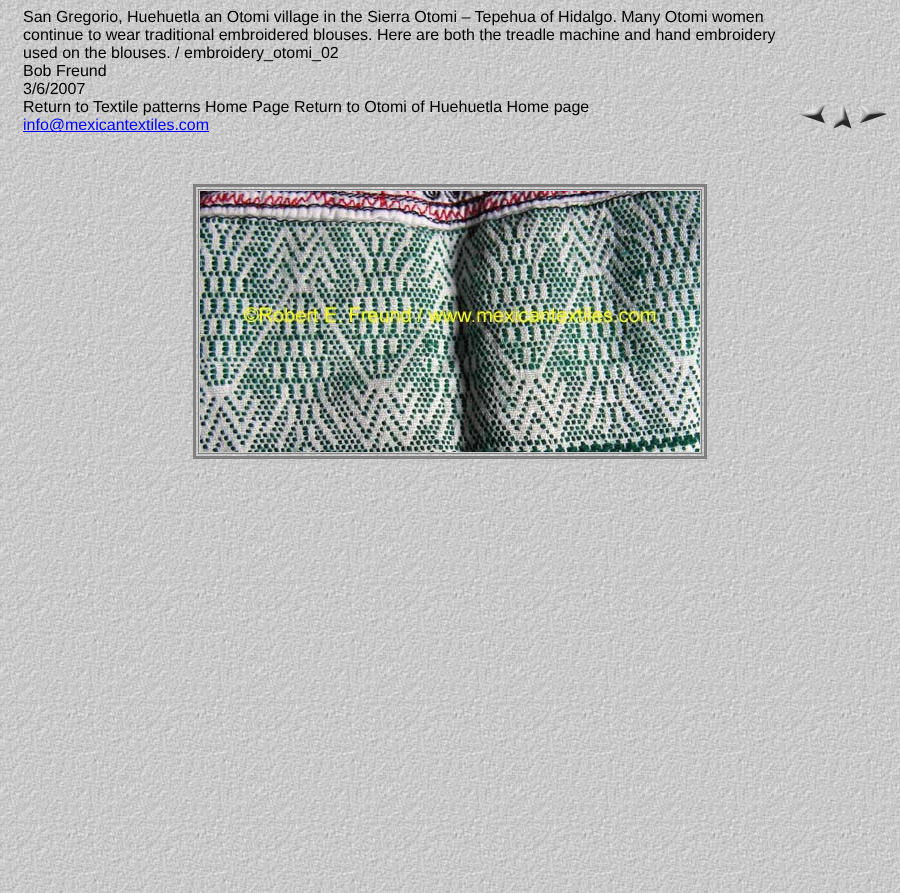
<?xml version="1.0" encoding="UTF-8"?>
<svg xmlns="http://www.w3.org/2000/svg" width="900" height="893">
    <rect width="100%" height="100%" fill="#FFFFFF"/>
    <image x="0" y="0" width="900" height="893" href="img_01.png"/>
    <text font-family="Liberation Sans" font-size="16" fill="#000000">
        <tspan x="23" y="22">San Gregorio, Huehuetla an Otomi village in the Sierra Otomi – Tepehua of Hidalgo. Many Otomi women</tspan>
        <tspan x="23" y="40">continue to wear traditional embroidered blouses. Here are both the treadle machine and hand embroidery</tspan>
        <tspan x="23" y="58">used on the blouses. / embroidery_otomi_02</tspan>
        <tspan x="23" y="76">Bob Freund</tspan>
        <tspan x="23" y="94">3/6/2007</tspan>
        <tspan x="23" y="112">Return to Textile patterns Home Page Return to Otomi of Huehuetla Home page</tspan>
    </text>
    <rect x="23" y="131" width="186" height="1" fill="#0000FF"/>
    <text x="23" y="130" font-family="Liberation Sans" font-size="16" fill="#0000FF">info@mexicantextiles.com</text>
    <image x="798" y="105" width="27" height="18" href="img_02.png"/>
    <image x="833" y="103" width="19" height="26" href="img_03.png"/>
    <image x="860" y="105" width="27" height="19" href="img_04.png"/>
    <rect x="194.5" y="185.5" width="511" height="272" fill="none" stroke="#808080" stroke-width="3"/>
    <rect x="198.5" y="189.5" width="503" height="264" fill="none" stroke="#808080"/>
    <image x="200" y="191" width="500" height="261" href="img_05.png"/>
</svg>
